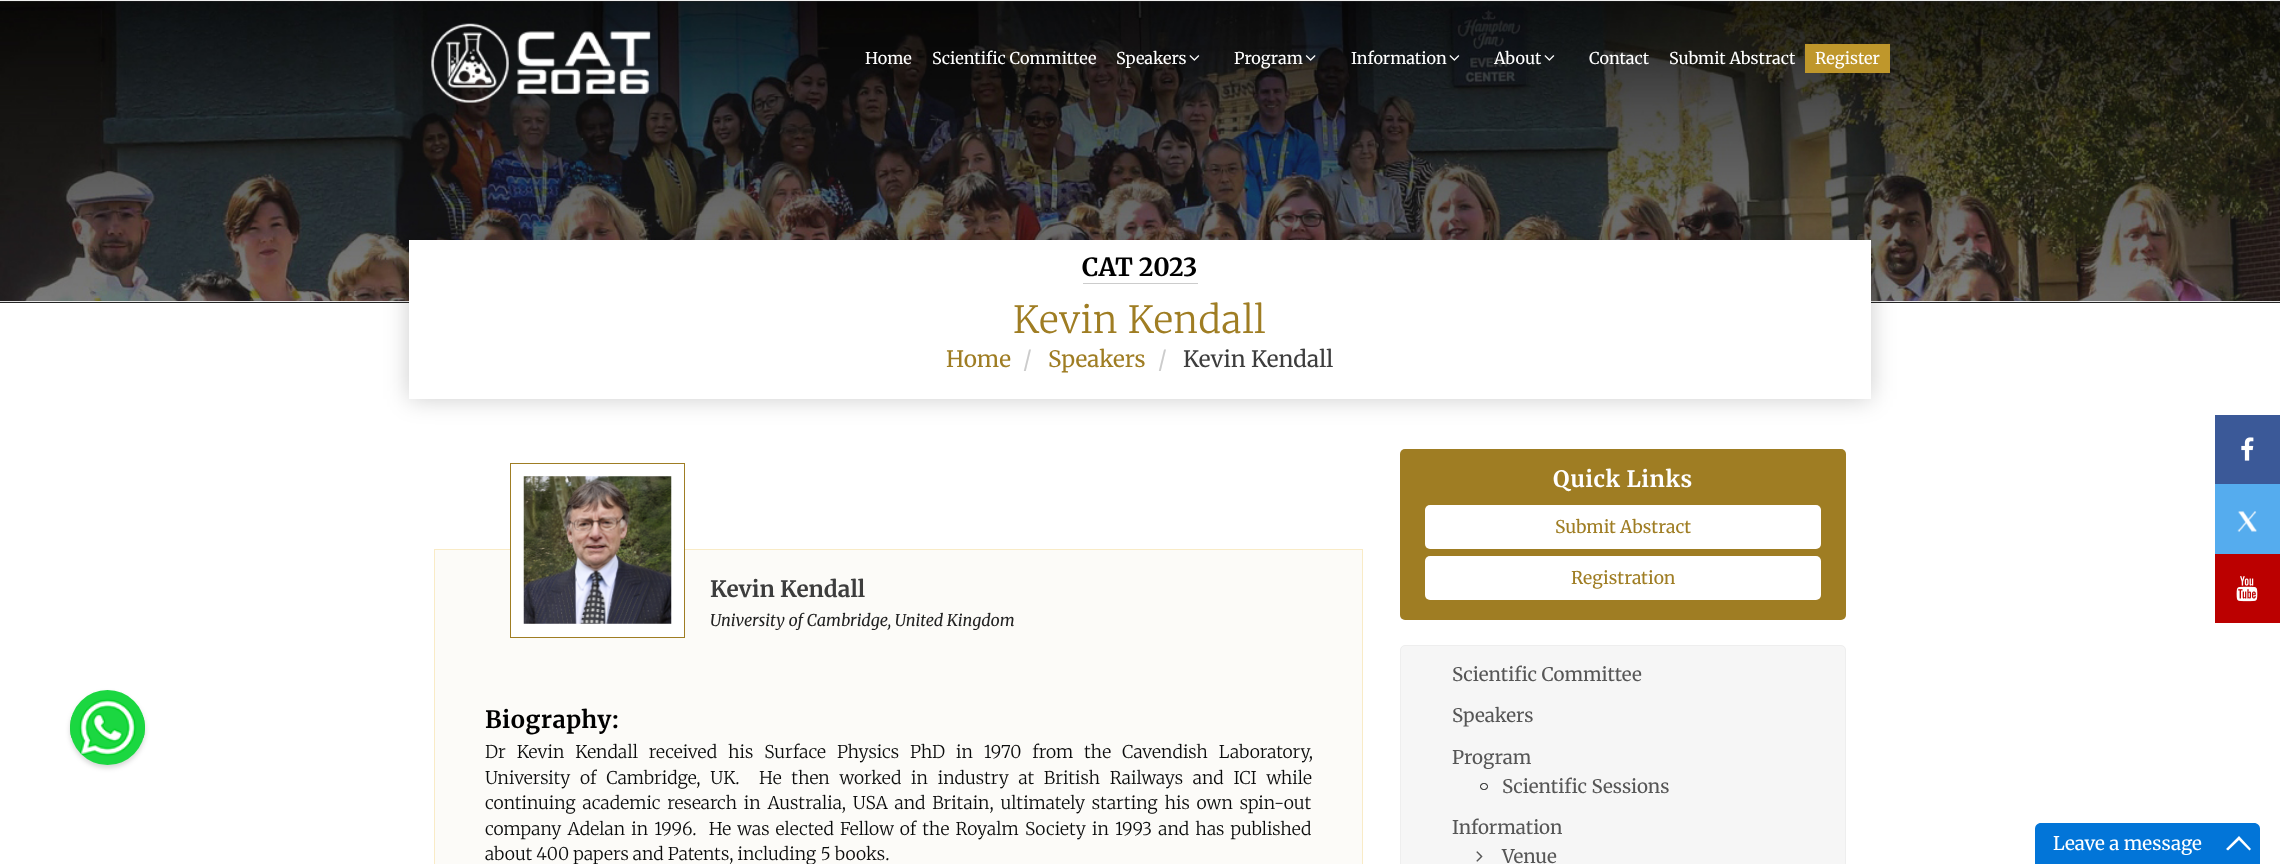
<?xml version="1.0" encoding="UTF-8"?>
<svg xmlns="http://www.w3.org/2000/svg" width="2280" height="864">
    <defs>
        <filter id="blur1" x="-50%" y="-200%" width="200%" height="500%"><feGaussianBlur stdDeviation="12.5"/></filter>
        <filter id="blur2" x="-50%" y="-200%" width="200%" height="500%"><feGaussianBlur stdDeviation="2.5"/></filter>
        <clipPath id="clip1"><rect x="70" y="690" width="75" height="75" rx="37.5"/></clipPath>
    </defs>
    <rect width="100%" height="100%" fill="#FFFFFF"/>
    <rect x="0" y="1" width="2280" height="302" fill="#252525"/>
    <rect x="0" y="0" width="2280" height="1" fill="#EEEEEE"/>
    <rect x="0" y="301" width="2280" height="1" fill="#EEEEEE"/>
    <image x="0" y="1" width="2280" height="301" href="img_01.png"/>
    <image x="431" y="23" width="220" height="80" href="img_02.png"/>
    <text x="865" y="64" font-family="Merriweather" font-size="16.25" fill="#FFFFFF">Home</text>
    <text x="932" y="64" font-family="Merriweather" font-size="16.25" fill="#FFFFFF">Scientific Committee</text>
    <text x="1116" y="64" font-family="Merriweather" font-size="16.25" fill="#FFFFFF">Speakers</text>
    <image x="1189" y="55" width="11" height="6" href="img_03.png"/>
    <text x="1234" y="64" font-family="Merriweather" font-size="16.25" fill="#FFFFFF">Program</text>
    <image x="1305" y="55" width="11" height="6" href="img_04.png"/>
    <text x="1351" y="64" font-family="Merriweather" font-size="16.25" fill="#FFFFFF">Information</text>
    <image x="1449" y="55" width="11" height="6" href="img_05.png"/>
    <text x="1494" y="64" font-family="Merriweather" font-size="16.25" fill="#FFFFFF">About</text>
    <image x="1544" y="55" width="11" height="6" href="img_06.png"/>
    <text x="1589" y="64" font-family="Merriweather" font-size="16.25" fill="#FFFFFF">Contact</text>
    <text x="1669" y="64" font-family="Merriweather" font-size="16.25" fill="#FFFFFF">Submit Abstract</text>
    <rect x="1805" y="44" width="85" height="29" fill="#BF972B"/>
    <text x="1815" y="64" font-family="Merriweather" font-size="16.25" fill="#FFFFFF">Register</text>
    <rect x="409" y="240" width="1462" height="159" fill="#000000" fill-opacity="0.2" filter="url(#blur1)"/>
    <rect x="409" y="240" width="1462" height="159" fill="#FFFFFF"/>
    <text x="1082" y="276" font-family="Merriweather" font-size="25" font-weight="700" fill="#000000">CAT 2023</text>
    <rect x="1083" y="283" width="115" height="1" fill="#CCCCCC"/>
    <text x="1013" y="333" font-family="Merriweather" font-size="37.5" font-weight="300" letter-spacing="0.6" fill="#9F7D23">Kevin Kendall</text>
    <text x="946" y="367" font-family="Merriweather" font-size="22.5" fill="#9F7D23">Home</text>
    <text x="1023" y="367" font-family="Merriweather" font-size="22.5" fill="#CCCCCC">/</text>
    <text x="1048" y="367" font-family="Merriweather" font-size="22.5" fill="#9F7D23">Speakers</text>
    <text x="1158" y="367" font-family="Merriweather" font-size="22.5" fill="#CCCCCC">/</text>
    <text x="1183" y="367" font-family="Merriweather" font-size="22.5" fill="#3D3D3D">Kevin Kendall</text>
    <rect x="70" y="693" width="75" height="75" rx="37.5" fill="#000000" fill-opacity="0.16" filter="url(#blur2)"/>
    <g clip-path="url(#clip1)">
        <rect x="70" y="715" width="75" height="23" fill="#11B925"/>
    </g>
    <image x="70" y="690" width="75" height="75" href="img_07.png"/>
    <rect x="434.5" y="549.5" width="928" height="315" fill="#FCFBF8" stroke="#F9EBC6"/>
    <rect x="511" y="549" width="173" height="88" fill="#FFFFFF"/>
    <rect x="510.5" y="463.5" width="174" height="174" fill="none" stroke="#9F7D23"/>
    <image x="523" y="476" width="149" height="148" href="img_08.png"/>
    <text x="710" y="597" font-family="Merriweather" font-size="22.5" font-weight="700" fill="#3D3D3D">Kevin Kendall</text>
    <text x="710" y="626" font-family="Merriweather" font-size="16.25" font-style="italic" fill="#222222">University of Cambridge, United Kingdom</text>
    <text x="485" y="728" font-family="Merriweather" font-size="23.75" font-weight="700" letter-spacing="0.6" fill="#000000">Biography:</text>
    <text font-family="Merriweather" font-size="17.5" font-weight="300" fill="#0B0C0C" xml:space="preserve"><tspan x="485" y="758" word-spacing="6.75">Dr Kevin Kendall received his Surface Physics PhD in 1970 from the Cavendish Laboratory,</tspan><tspan x="485" y="784" word-spacing="5.6">University of Cambridge, UK.  He then worked in industry at British Railways and ICI while</tspan><tspan x="485" y="809" word-spacing="2.6">continuing academic research in Australia, USA and Britain, ultimately starting his own spin-out</tspan><tspan x="485" y="835" word-spacing="2">company Adelan in 1996.  He was elected Fellow of the Royalm Society in 1993 and has published</tspan><tspan x="485" y="860">about 400 papers and Patents, including 5 books.</tspan></text>
    <rect x="1400" y="449" width="446" height="171" rx="5" fill="#9F7D23"/>
    <text x="1553" y="487" font-family="Merriweather" font-size="22.5" font-weight="700" letter-spacing="0.6" fill="#FFFFFF">Quick Links</text>
    <rect x="1425" y="505" width="396" height="44" rx="5" fill="#FFFFFF"/>
    <text x="1555" y="533" font-family="Merriweather" font-size="17.5" fill="#9F7D23">Submit Abstract</text>
    <rect x="1425" y="556" width="396" height="44" rx="5" fill="#FFFFFF"/>
    <text x="1571" y="584" font-family="Merriweather" font-size="17.5" fill="#9F7D23">Registration</text>
    <rect x="1400.5" y="645.5" width="445" height="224" rx="4.5" fill="#F6F6F6" stroke="#EEEEEE"/>
    <text x="1452" y="681" font-family="Merriweather" font-size="18.75" fill="#565656">Scientific Committee</text>
    <text x="1452" y="722" font-family="Merriweather" font-size="18.75" fill="#565656">Speakers</text>
    <text x="1452" y="764" font-family="Merriweather" font-size="18.75" fill="#565656">Program</text>
    <rect x="1480.5" y="783.5" width="7" height="6" rx="3" fill="none" stroke="#0B0C0C"/>
    <text x="1502" y="793" font-family="Merriweather" font-size="18.75" fill="#565656">Scientific Sessions</text>
    <text x="1452" y="834" font-family="Merriweather" font-size="18.75" fill="#565656">Information</text>
    <image x="1476" y="851" width="7" height="11" href="img_09.png"/>
    <text x="1502" y="863" font-family="Merriweather" font-size="18.75" fill="#565656">Venue</text>
    <rect x="2215" y="415" width="65" height="69" fill="#3B5998"/>
    <image x="2241" y="437" width="13" height="24" href="img_10.png"/>
    <rect x="2215" y="484" width="65" height="70" fill="#55ACEE"/>
    <image x="2237" y="511" width="20" height="21" href="img_11.png"/>
    <rect x="2215" y="554" width="65" height="69" fill="#BB0000"/>
    <image x="2236" y="576" width="22" height="26" href="img_12.png"/>
    <path d="M 2041 823 H 2254 C 2257.5 823 2260 825.5 2260 829 V 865 H 2035 V 829 C 2035 825.5 2037.5 823 2041 823 Z" fill="#0275D8"/>
    <text x="2053" y="850" font-family="Merriweather" font-size="18.75" fill="#FFFFFF">Leave a message</text>
    <path d="M 2239 836 L 2251 849 L 2249.5 850.5 L 2239 840 L 2228 850.5 L 2226 849 Z" fill="#FFFFFF"/>
</svg>
